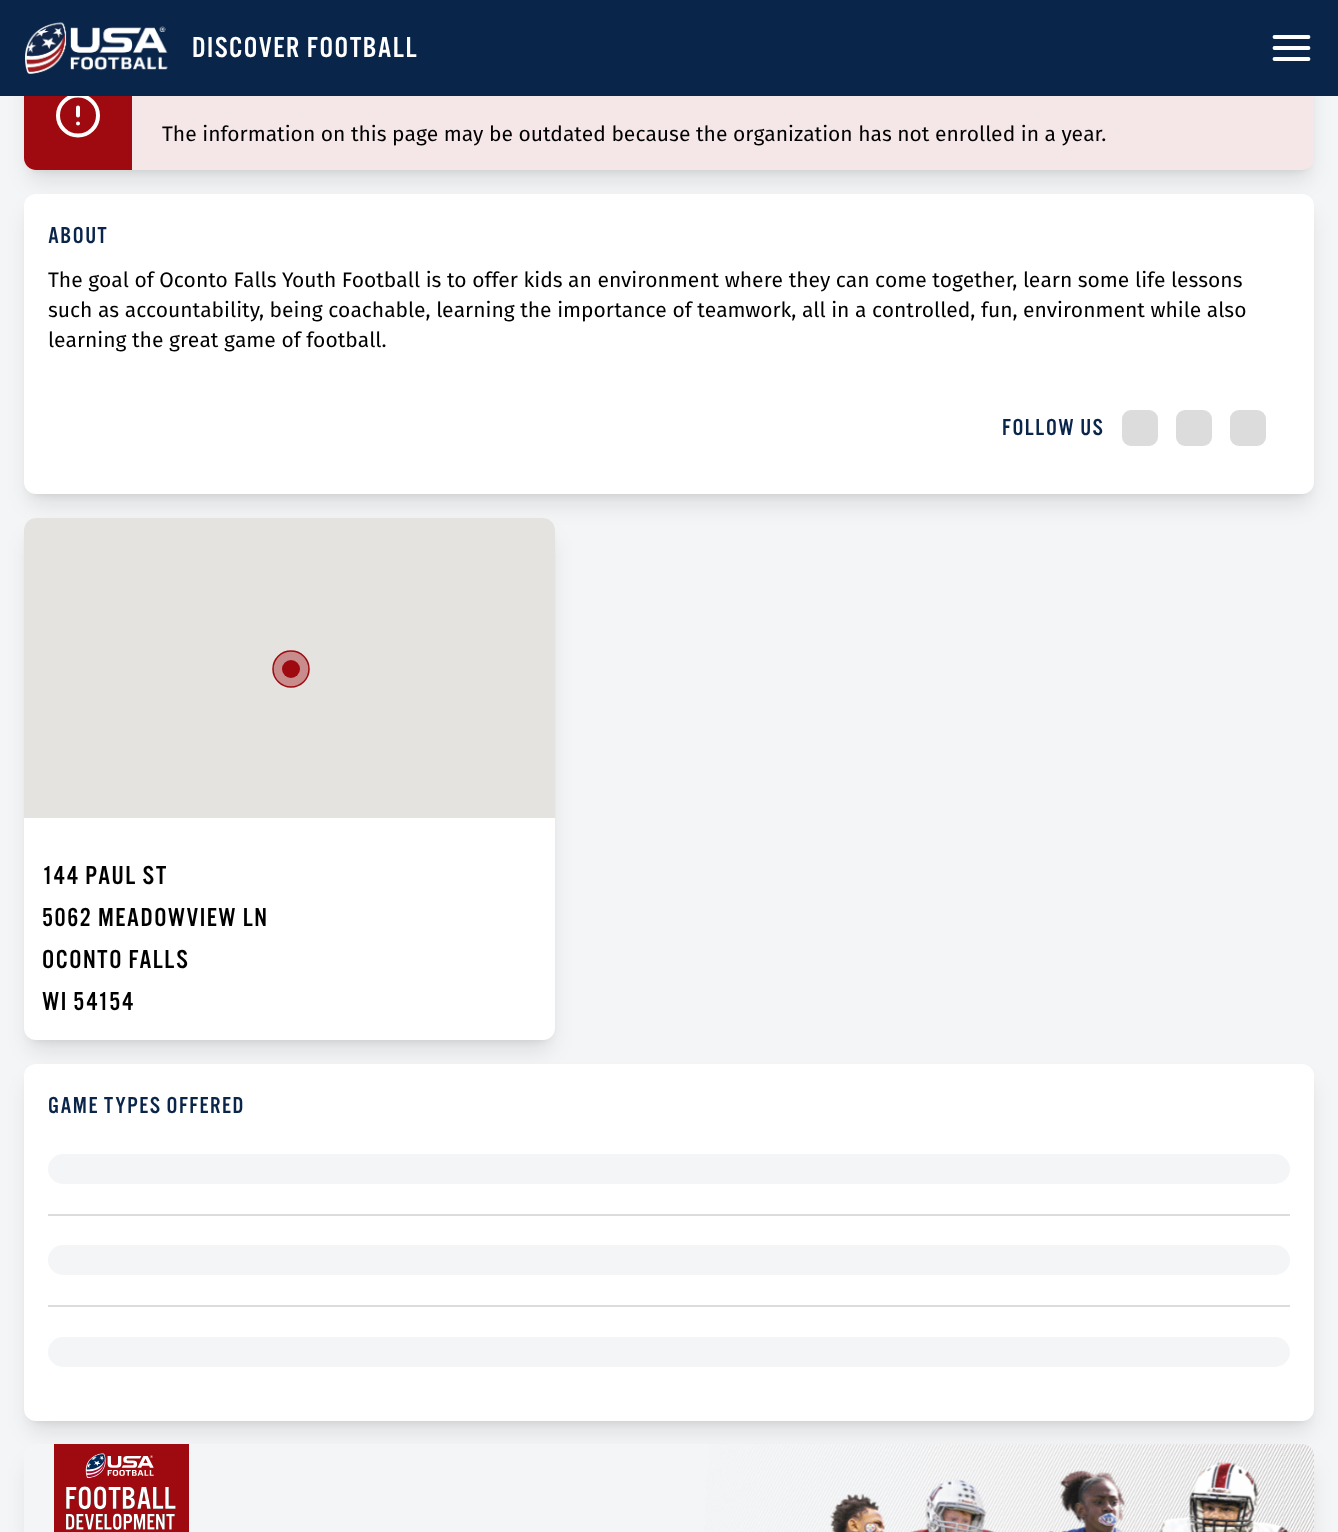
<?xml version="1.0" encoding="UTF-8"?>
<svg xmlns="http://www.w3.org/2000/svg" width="1338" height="1532">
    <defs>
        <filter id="blur1" x="-50%" y="-200%" width="200%" height="500%"><feGaussianBlur stdDeviation="4.5"/></filter>
        <filter id="blur2" x="-50%" y="-200%" width="200%" height="500%"><feGaussianBlur stdDeviation="11"/></filter>
    </defs>
    <rect width="100%" height="100%" fill="#F3F5F7"/>
    <rect x="30" y="74" width="1278" height="96" rx="6" fill="#000000" fill-opacity="0.1" filter="url(#blur1)"/>
    <rect x="29" y="81" width="1281" height="99" rx="8" fill="#000000" fill-opacity="0.1" filter="url(#blur2)"/>
    <rect x="24" y="62" width="1290" height="108" rx="12" fill="#FFFFFF"/>
    <rect x="24" y="62" width="1290" height="108" rx="12" fill="#9E0A0F" fill-opacity="0.1"/>
    <path d="M 36 62 H 132 V 170 H 36 C 29.5 170 24 164.5 24 158 V 74 C 24 67.5 29.5 62 36 62 Z" fill="#9E0A0F"/>
    <circle cx="78" cy="115.5" r="20" fill="none" stroke="#FFFFFF" stroke-width="4"/>
    <rect x="0" y="0" width="1338" height="96" fill="#09254A"/>
    <image x="25" y="22" width="143" height="52" href="img_01.png"/>
    <text x="192" y="57" font-family="'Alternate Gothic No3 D'" font-size="30" font-weight="500" letter-spacing="1.5" fill="#FFFFFF">DISCOVER FOOTBALL</text>
    <path d="M 1274.5 48 H 1308.5 M 1274.5 37 H 1308.5 M 1274.5 59 H 1308.5" fill="none" stroke="#FFFFFF" stroke-width="3.8" stroke-linecap="round" stroke-linejoin="round"/>
    <path d="M 78 107.5 V 115.5 M 78 123.5 H 78" fill="none" stroke="#FFFFFF" stroke-width="4" stroke-linecap="round" stroke-linejoin="round"/>
    <text x="162" y="141" font-family="Fira Sans" font-size="21" fill="#000000">The information on this page may be outdated because the organization has not enrolled in a year.</text>
    <rect x="30" y="206" width="1278" height="288" rx="6" fill="#000000" fill-opacity="0.1" filter="url(#blur1)"/>
    <rect x="29" y="213" width="1281" height="291" rx="8" fill="#000000" fill-opacity="0.1" filter="url(#blur2)"/>
    <rect x="24" y="194" width="1290" height="300" rx="12" fill="#FFFFFF"/>
    <text x="48" y="243" font-family="'Alternate Gothic No3 D'" font-size="24" font-weight="500" letter-spacing="1.5" fill="#09254A">ABOUT</text>
    <text font-family="Fira Sans" font-size="21" fill="#000000">
        <tspan x="48" y="287">The goal of Oconto Falls Youth Football is to offer kids an environment where they can come together, learn some life lessons</tspan>
        <tspan x="48" y="317">such as accountability, being coachable, learning the importance of teamwork, all in a controlled, fun, environment while also</tspan>
        <tspan x="48" y="347">learning the great game of football.</tspan>
    </text>
    <text x="1002" y="435" font-family="'Alternate Gothic No3 D'" font-size="24" font-weight="500" letter-spacing="1.5" fill="#09254A">FOLLOW US</text>
    <rect x="1122" y="410" width="36" height="36" rx="9" fill="#DCDCDC"/>
    <rect x="1176" y="410" width="36" height="36" rx="9" fill="#DCDCDC"/>
    <rect x="1230" y="410" width="36" height="36" rx="9" fill="#DCDCDC"/>
    <rect x="30" y="530" width="519" height="510" rx="6" fill="#000000" fill-opacity="0.1" filter="url(#blur1)"/>
    <rect x="29" y="537" width="522" height="513" rx="8" fill="#000000" fill-opacity="0.1" filter="url(#blur2)"/>
    <rect x="24" y="518" width="531" height="522" rx="12" fill="#FFFFFF"/>
    <path d="M 36 518 H 543 C 549.5 518 555 523.5 555 530 V 818 H 24 V 530 C 24 523.5 29.5 518 36 518 Z" fill="#E5E3DF"/>
    <circle cx="291" cy="669" r="18" fill="#C98C8C" stroke="#9E0A0F" stroke-width="1.5"/>
    <circle cx="291" cy="669" r="9" fill="#9E0A0F"/>
    <text font-family="'Alternate Gothic No3 D'" font-size="27" font-weight="500" letter-spacing="1.5" fill="#000000">
        <tspan x="42" y="884">144 PAUL ST</tspan>
        <tspan x="42" y="926">5062 MEADOWVIEW LN</tspan>
        <tspan x="42" y="968">OCONTO FALLS</tspan>
        <tspan x="42" y="1010">WI 54154</tspan>
    </text>
    <rect x="30" y="1076" width="1278" height="345" rx="6" fill="#000000" fill-opacity="0.1" filter="url(#blur1)"/>
    <rect x="29" y="1083" width="1281" height="348" rx="8" fill="#000000" fill-opacity="0.1" filter="url(#blur2)"/>
    <rect x="24" y="1064" width="1290" height="357" rx="12" fill="#FFFFFF"/>
    <text x="48" y="1113" font-family="'Alternate Gothic No3 D'" font-size="24" font-weight="500" letter-spacing="1.5" fill="#09254A">GAME TYPES OFFERED</text>
    <rect x="48" y="1214" width="1242" height="2" fill="#DCDCDC"/>
    <rect x="48" y="1154" width="1242" height="30" rx="15" fill="#F3F5F7"/>
    <rect x="48" y="1305" width="1242" height="2" fill="#DCDCDC"/>
    <rect x="48" y="1245" width="1242" height="30" rx="15" fill="#F3F5F7"/>
    <rect x="48" y="1337" width="1242" height="30" rx="15" fill="#F3F5F7"/>
    <rect x="29" y="1464" width="1281" height="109" rx="8" fill="#000000" fill-opacity="0.1" filter="url(#blur2)"/>
    <image x="24" y="1444" width="1290" height="88" href="img_02.png"/>
    <image x="54" y="1444" width="135" height="88" href="img_03.png"/>
</svg>
